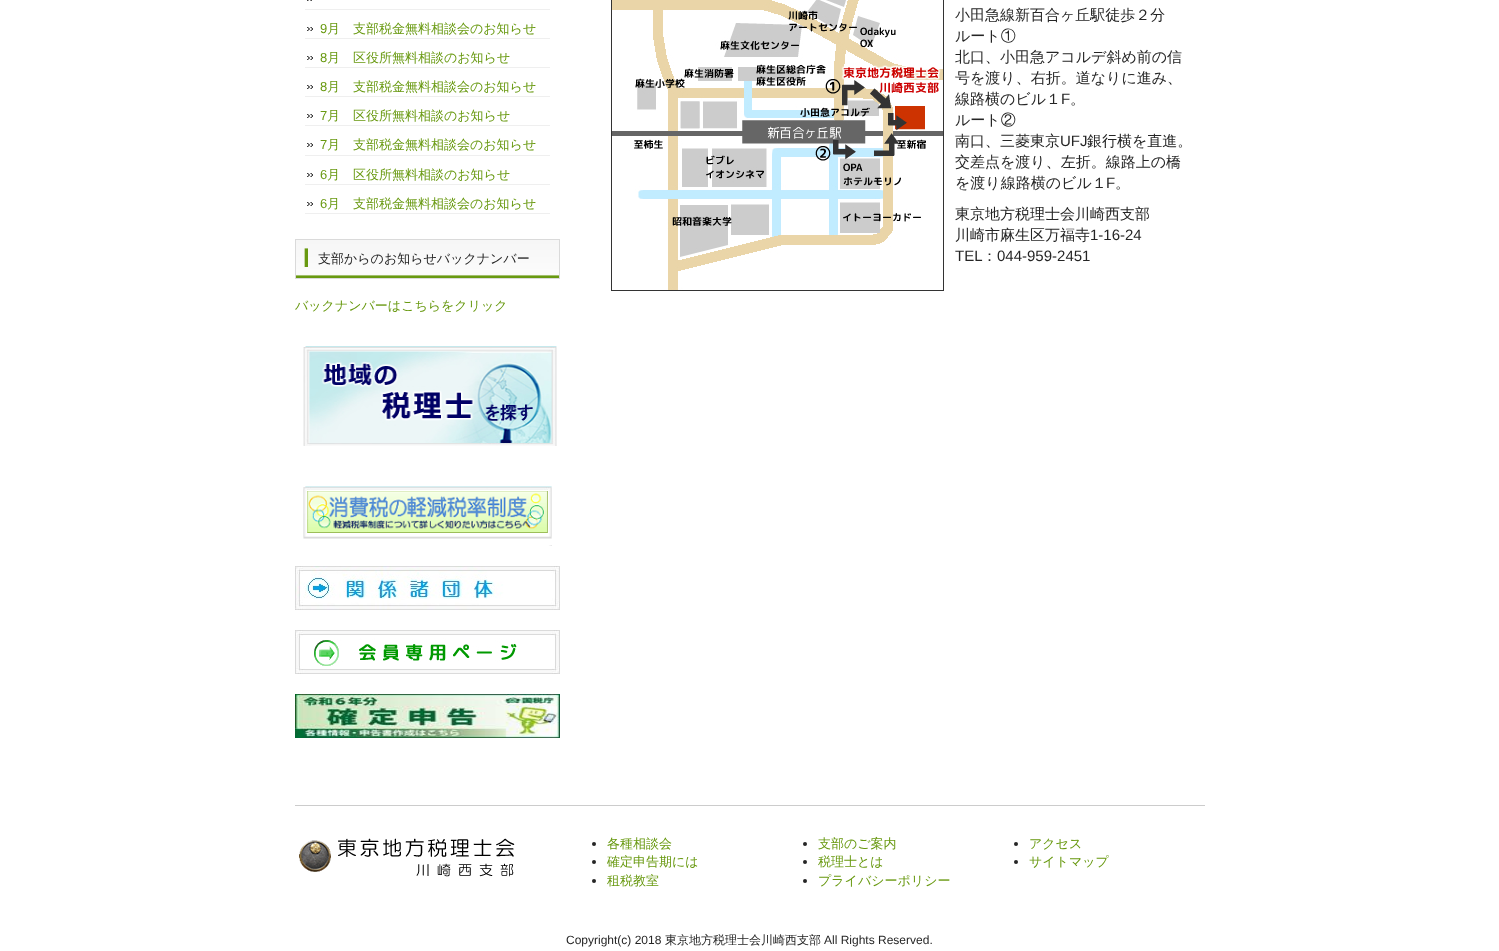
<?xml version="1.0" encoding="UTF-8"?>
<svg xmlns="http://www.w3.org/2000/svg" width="1499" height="951">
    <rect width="100%" height="100%" fill="#FFFFFF"/>
    <rect x="305" y="9" width="245" height="1" fill="#EFEFEF"/>
    <image x="307" y="0" width="5" height="1" href="img_01.png"/>
    <rect x="305" y="38" width="245" height="1" fill="#EFEFEF"/>
    <image x="307" y="27" width="6" height="4" href="img_02.png"/>
    <text x="320" y="33" font-family="Liberation Sans" font-size="13" fill="#689910">9</text>
    <text x="327" y="33" font-family="WenQuanYi Zen Hei" font-size="13" font-weight="500" fill="#689910">月　支部税金無料相談会のお知らせ</text>
    <rect x="305" y="67" width="245" height="1" fill="#EFEFEF"/>
    <image x="307" y="56" width="6" height="4" href="img_02.png"/>
    <text x="320" y="62" font-family="Liberation Sans" font-size="13" fill="#689910">8</text>
    <text x="327" y="62" font-family="WenQuanYi Zen Hei" font-size="13" font-weight="500" fill="#689910">月　区役所無料相談のお知らせ</text>
    <rect x="305" y="96" width="245" height="1" fill="#EFEFEF"/>
    <image x="307" y="85" width="6" height="4" href="img_02.png"/>
    <text x="320" y="91" font-family="Liberation Sans" font-size="13" fill="#689910">8</text>
    <text x="327" y="91" font-family="WenQuanYi Zen Hei" font-size="13" font-weight="500" fill="#689910">月　支部税金無料相談会のお知らせ</text>
    <rect x="305" y="125" width="245" height="1" fill="#EFEFEF"/>
    <image x="307" y="114" width="6" height="4" href="img_02.png"/>
    <text x="320" y="120" font-family="Liberation Sans" font-size="13" fill="#689910">7</text>
    <text x="327" y="120" font-family="WenQuanYi Zen Hei" font-size="13" font-weight="500" fill="#689910">月　区役所無料相談のお知らせ</text>
    <rect x="305" y="155" width="245" height="1" fill="#EFEFEF"/>
    <image x="307" y="143" width="6" height="4" href="img_02.png"/>
    <text x="320" y="149" font-family="Liberation Sans" font-size="13" fill="#689910">7</text>
    <text x="327" y="149" font-family="WenQuanYi Zen Hei" font-size="13" font-weight="500" fill="#689910">月　支部税金無料相談会のお知らせ</text>
    <rect x="305" y="184" width="245" height="1" fill="#EFEFEF"/>
    <image x="307" y="173" width="6" height="4" href="img_02.png"/>
    <text x="320" y="179" font-family="Liberation Sans" font-size="13" fill="#689910">6</text>
    <text x="327" y="179" font-family="WenQuanYi Zen Hei" font-size="13" font-weight="500" fill="#689910">月　区役所無料相談のお知らせ</text>
    <rect x="305" y="213" width="245" height="1" fill="#EFEFEF"/>
    <image x="307" y="202" width="6" height="4" href="img_02.png"/>
    <text x="320" y="208" font-family="Liberation Sans" font-size="13" fill="#689910">6</text>
    <text x="327" y="208" font-family="WenQuanYi Zen Hei" font-size="13" font-weight="500" fill="#689910">月　支部税金無料相談会のお知らせ</text>
    <image x="295" y="239" width="265" height="40" href="img_03.png"/>
    <text x="318" y="263" font-family="WenQuanYi Zen Hei" font-size="13" font-weight="500" fill="#252525">支部からのお知らせバックナンバー</text>
    <text x="295" y="310" font-family="WenQuanYi Zen Hei" font-size="13" font-weight="500" fill="#689910">バックナンバーはこちらをクリック</text>
    <image x="303" y="346" width="254" height="100" href="img_04.png"/>
    <image x="303" y="486" width="249" height="60" href="img_05.png"/>
    <image x="295" y="566" width="265" height="44" href="img_06.png"/>
    <image x="295" y="630" width="265" height="44" href="img_07.png"/>
    <image x="295" y="694" width="265" height="44" href="img_08.png"/>
    <image x="611" y="0" width="333" height="291" href="img_09.png"/>
    <text font-family="WenQuanYi Zen Hei" font-size="15" font-weight="500" fill="#252525">
        <tspan x="955" y="20">小田急線新百合ヶ丘駅徒歩２分</tspan>
        <tspan x="955" y="41">ルート①</tspan>
        <tspan x="955" y="62">北口、小田急アコルデ斜め前の信</tspan>
        <tspan x="955" y="83">号を渡り、右折。道なりに進み、</tspan>
        <tspan x="955" y="104">線路横のビル１</tspan>
    </text>
    <text x="1061" y="104" font-family="Liberation Sans" font-size="15" fill="#252525">F</text>
    <text x="1070" y="104" font-family="WenQuanYi Zen Hei" font-size="15" font-weight="500" fill="#252525">。</text>
    <text font-family="WenQuanYi Zen Hei" font-size="15" font-weight="500" fill="#252525">
        <tspan x="955" y="125">ルート②</tspan>
        <tspan x="955" y="146">南口、三菱東京</tspan>
    </text>
    <text x="1060" y="146" font-family="Liberation Sans" font-size="15" fill="#252525">UFJ</text>
    <text x="1087" y="146" font-family="WenQuanYi Zen Hei" font-size="15" font-weight="500" fill="#252525">銀行横を直進。</text>
    <text font-family="WenQuanYi Zen Hei" font-size="15" font-weight="500" fill="#252525">
        <tspan x="955" y="167">交差点を渡り、左折。線路上の橋</tspan>
        <tspan x="955" y="188">を渡り線路横のビル１</tspan>
    </text>
    <text x="1106" y="188" font-family="Liberation Sans" font-size="15" fill="#252525">F</text>
    <text x="1115" y="188" font-family="WenQuanYi Zen Hei" font-size="15" font-weight="500" fill="#252525">。</text>
    <text font-family="WenQuanYi Zen Hei" font-size="15" font-weight="500" fill="#252525">
        <tspan x="955" y="219">東京地方税理士会川崎西支部</tspan>
        <tspan x="955" y="240">川崎市麻生区万福寺</tspan>
    </text>
    <text x="1090" y="240" font-family="Liberation Sans" font-size="15" fill="#252525">1-16-24</text>
    <text x="955" y="261" font-family="Liberation Sans" font-size="15" fill="#252525">TEL</text>
    <text x="982" y="261" font-family="WenQuanYi Zen Hei" font-size="15" font-weight="500" fill="#252525">：</text>
    <text x="997" y="261" font-family="Liberation Sans" font-size="15" fill="#252525">044-959-2451</text>
    <rect x="295" y="805" width="910" height="1" fill="#CCCCCC"/>
    <image x="299" y="838" width="216" height="39" href="img_10.png"/>
    <circle cx="594" cy="844" r="2" fill="#252525"/>
    <text x="607" y="848" font-family="WenQuanYi Zen Hei" font-size="13" font-weight="500" fill="#689910">各種相談会</text>
    <circle cx="594" cy="862" r="2" fill="#252525"/>
    <text x="607" y="866" font-family="WenQuanYi Zen Hei" font-size="13" font-weight="500" fill="#689910">確定申告期には</text>
    <circle cx="594" cy="881" r="2" fill="#252525"/>
    <text x="607" y="885" font-family="WenQuanYi Zen Hei" font-size="13" font-weight="500" fill="#689910">租税教室</text>
    <circle cx="805" cy="844" r="2" fill="#252525"/>
    <text x="818" y="848" font-family="WenQuanYi Zen Hei" font-size="13" font-weight="500" fill="#689910">支部のご案内</text>
    <circle cx="805" cy="862" r="2" fill="#252525"/>
    <text x="818" y="866" font-family="WenQuanYi Zen Hei" font-size="13" font-weight="500" fill="#689910">税理士とは</text>
    <circle cx="805" cy="881" r="2" fill="#252525"/>
    <text x="818" y="885" font-family="WenQuanYi Zen Hei" font-size="13" font-weight="500" fill="#689910">プライバシーポリシー</text>
    <circle cx="1016" cy="844" r="2" fill="#252525"/>
    <text x="1029" y="848" font-family="WenQuanYi Zen Hei" font-size="13" font-weight="500" fill="#689910">アクセス</text>
    <circle cx="1016" cy="862" r="2" fill="#252525"/>
    <text x="1029" y="866" font-family="WenQuanYi Zen Hei" font-size="13" font-weight="500" fill="#689910">サイトマップ</text>
    <text x="566" y="944" font-family="Liberation Sans" font-size="12" fill="#252525">Copyright(c) 2018</text>
    <text x="665" y="944" font-family="WenQuanYi Zen Hei" font-size="12" font-weight="500" fill="#252525">東京地方税理士会川崎西支部</text>
    <text x="824" y="944" font-family="Liberation Sans" font-size="12" fill="#252525">All Rights Reserved.</text>
</svg>
